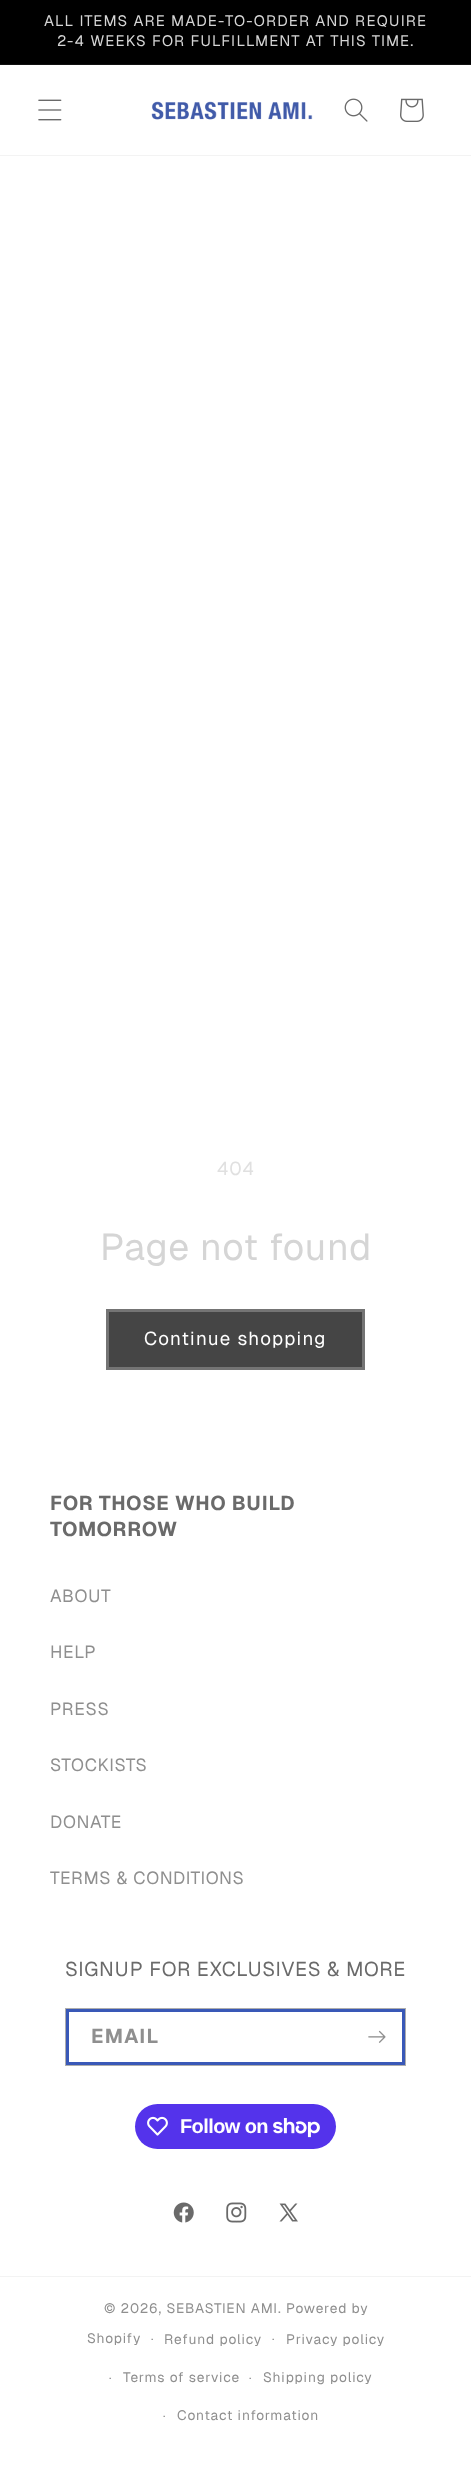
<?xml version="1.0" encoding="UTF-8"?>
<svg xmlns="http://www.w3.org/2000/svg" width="471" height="2468">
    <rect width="100%" height="100%" fill="#FFFFFF"/>
    <rect x="0" y="0" width="471" height="64" fill="#000000"/>
    <rect x="0" y="64" width="471" height="1" fill="#111111"/>
    <text x="44" y="26" font-family="Geist" font-size="15" letter-spacing="1.25" fill="#D5D5D5">ALL ITEMS ARE MADE-TO-ORDER AND REQUIRE</text>
    <text x="57" y="46" font-family="Geist" font-size="15" letter-spacing="1.25" fill="#D5D5D5">2-4 WEEKS FOR FULFILLMENT AT THIS TIME.</text>
    <rect x="0" y="155" width="471" height="1" fill="#F3F3F3"/>
    <image x="38" y="99" width="24" height="22" href="img_01.png"/>
    <image x="151" y="101" width="162" height="19" href="img_02.png"/>
    <image x="344" y="98" width="24" height="24" href="img_03.png"/>
    <image x="400" y="98" width="24" height="24" href="img_04.png"/>
    <text x="217" y="1175" font-family="Geist" font-size="18.75" letter-spacing="0.75" fill="#E0E0E0">404</text>
    <text x="100" y="1260" font-family="Geist" font-size="37.5" letter-spacing="0.75" fill="#D5D5D5">Page not found</text>
    <rect x="109" y="1312" width="253" height="55" fill="#454545"/>
    <rect x="107.5" y="1310.5" width="256" height="58" fill="none" stroke="#747474" stroke-width="3"/>
    <text x="144" y="1345" font-family="Geist" font-size="18.75" letter-spacing="1.25" fill="#FFFFFF">Continue shopping</text>
    <text font-family="Geist" font-size="20" font-weight="700" letter-spacing="0.75" fill="#6A6A6A">
        <tspan x="50" y="1510">FOR THOSE WHO BUILD</tspan>
        <tspan x="50" y="1536">TOMORROW</tspan>
    </text>
    <text x="50" y="1602" font-family="Geist" font-size="17.5" letter-spacing="0.75" fill="#8F8F8F">ABOUT</text>
    <text x="50" y="1658" font-family="Geist" font-size="17.5" letter-spacing="0.75" fill="#8F8F8F">HELP</text>
    <text x="50" y="1715" font-family="Geist" font-size="17.5" letter-spacing="0.75" fill="#8F8F8F">PRESS</text>
    <text x="50" y="1771" font-family="Geist" font-size="17.5" letter-spacing="0.75" fill="#8F8F8F">STOCKISTS</text>
    <text x="50" y="1828" font-family="Geist" font-size="17.5" letter-spacing="0.75" fill="#8F8F8F">DONATE</text>
    <text x="50" y="1884" font-family="Geist" font-size="17.5" letter-spacing="0.75" fill="#8F8F8F">TERMS &amp; CONDITIONS</text>
    <text x="65" y="1976" font-family="Geist" font-size="20" letter-spacing="0.75" fill="#6A6A6A">SIGNUP FOR EXCLUSIVES &amp; MORE</text>
    <rect x="67.5" y="2010.5" width="336" height="53" fill="none" stroke="#3958B7" stroke-width="3"/>
    <rect x="65.5" y="2008.5" width="340" height="57" fill="none" stroke="#ADADAD"/>
    <text x="91" y="2043" font-family="Geist" font-size="20" font-weight="700" letter-spacing="1.25" fill="#8F8F8F">EMAIL</text>
    <image x="368" y="2030" width="18" height="13" href="img_05.png"/>
    <rect x="135" y="2104" width="201" height="45" rx="22.5" fill="#5433EB"/>
    <image x="147" y="2116" width="21" height="20" href="img_06.png"/>
    <text x="180" y="2133" font-family="Liberation Sans" font-size="20" font-weight="700" letter-spacing="-0.6" fill="#FFFFFF">Follow on</text>
    <image x="273" y="2118" width="47" height="20" href="img_07.png"/>
    <image x="173" y="2202" width="21" height="21" href="img_08.png"/>
    <image x="226" y="2202" width="21" height="21" href="img_09.png"/>
    <image x="279" y="2203" width="19" height="19" href="img_10.png"/>
    <rect x="0" y="2276" width="471" height="1" fill="#F3F3F3"/>
    <text x="104" y="2313" font-family="Geist" font-size="13.75" letter-spacing="0.9" fill="#8F8F8F">© 2026, SEBASTIEN AMI. Powered by</text>
    <text x="87" y="2343" font-family="Geist" font-size="13.75" letter-spacing="0.9" fill="#8F8F8F">Shopify</text>
    <text x="151" y="2343" font-family="Geist" font-size="12" letter-spacing="0.9" fill="#8F8F8F">·</text>
    <text x="164" y="2344" font-family="Geist" font-size="13.75" letter-spacing="0.9" fill="#8F8F8F">Refund policy</text>
    <text x="272" y="2343" font-family="Geist" font-size="12" letter-spacing="0.9" fill="#8F8F8F">·</text>
    <text x="286" y="2344" font-family="Geist" font-size="13.75" letter-spacing="0.9" fill="#8F8F8F">Privacy policy</text>
    <text x="109" y="2382" font-family="Geist" font-size="12" letter-spacing="0.9" fill="#8F8F8F">·</text>
    <text x="123" y="2382" font-family="Geist" font-size="13.75" letter-spacing="0.9" fill="#8F8F8F">Terms of service</text>
    <text x="249" y="2382" font-family="Geist" font-size="12" letter-spacing="0.9" fill="#8F8F8F">·</text>
    <text x="263" y="2382" font-family="Geist" font-size="13.75" letter-spacing="0.9" fill="#8F8F8F">Shipping policy</text>
    <text x="163" y="2420" font-family="Geist" font-size="12" letter-spacing="0.9" fill="#8F8F8F">·</text>
    <text x="177" y="2420" font-family="Geist" font-size="13.75" letter-spacing="0.9" fill="#8F8F8F">Contact information</text>
</svg>
